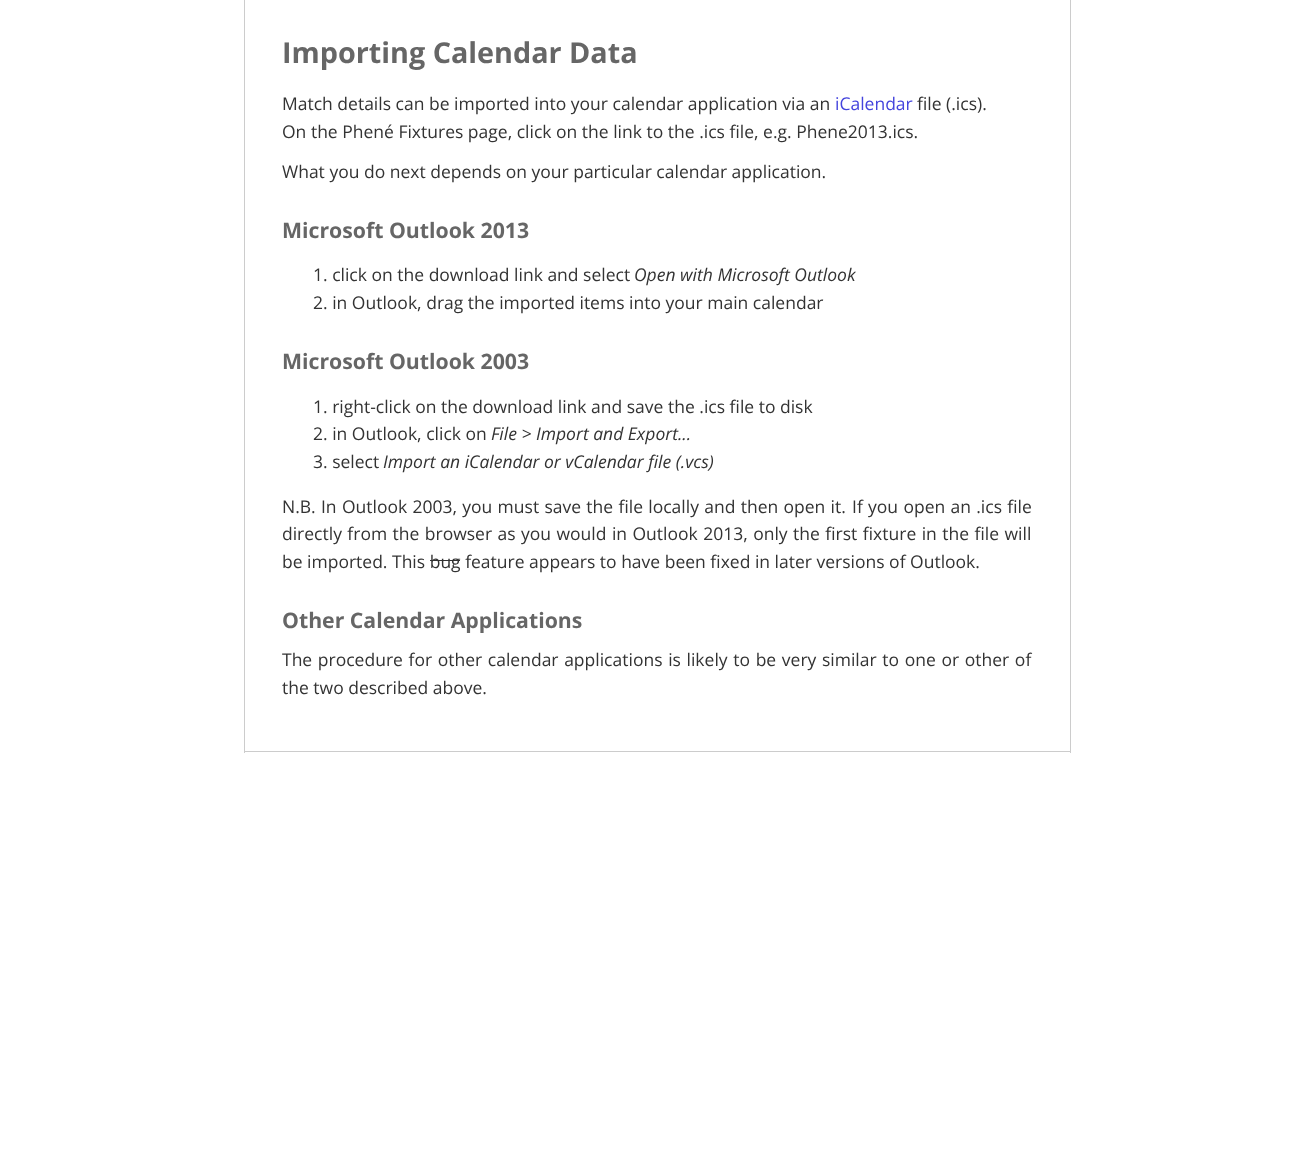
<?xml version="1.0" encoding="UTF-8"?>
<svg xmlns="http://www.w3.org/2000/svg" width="1313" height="1169">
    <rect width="100%" height="100%" fill="#FFFFFF"/>
    <rect x="1070" y="0" width="1" height="753" fill="#CCCCCC"/>
    <rect x="244" y="751" width="827" height="1" fill="#CCCCCC"/>
    <rect x="244" y="0" width="1" height="753" fill="#CCCCCC"/>
    <text x="282" y="63" font-family="Open Sans" font-size="28.75" font-weight="700" fill="#666666">Importing Calendar Data</text>
    <text x="282" y="110" font-family="Open Sans" font-size="17.5" fill="#333333">Match details can be imported into your calendar application via an</text>
    <text x="835" y="110" font-family="Open Sans" font-size="17.5" fill="#4444DD">iCalendar</text>
    <text x="917" y="110" font-family="Open Sans" font-size="17.5" fill="#333333">file (.ics).</text>
    <text x="282" y="138" font-family="Open Sans" font-size="17.5" fill="#333333">On the Phené Fixtures page, click on the link to the .ics file, e.g. Phene2013.ics.</text>
    <text x="282" y="178" font-family="Open Sans" font-size="17.5" fill="#333333">What you do next depends on your particular calendar application.</text>
    <text x="282" y="238" font-family="Open Sans" font-size="21.25" font-weight="700" fill="#666666">Microsoft Outlook 2013</text>
    <text x="313" y="281" font-family="Open Sans" font-size="17.5" fill="#333333">1. click on the download link and select</text>
    <text x="634" y="281" font-family="Open Sans" font-size="17.5" font-style="italic" fill="#333333">Open with Microsoft Outlook</text>
    <text x="313" y="309" font-family="Open Sans" font-size="17.5" fill="#333333">2. in Outlook, drag the imported items into your main calendar</text>
    <text x="282" y="369" font-family="Open Sans" font-size="21.25" font-weight="700" fill="#666666">Microsoft Outlook 2003</text>
    <text font-family="Open Sans" font-size="17.5" fill="#333333">
        <tspan x="313" y="413">1. right-click on the download link and save the .ics file to disk</tspan>
        <tspan x="313" y="440">2. in Outlook, click on</tspan>
    </text>
    <text x="491" y="440" font-family="Open Sans" font-size="17.5" font-style="italic" fill="#333333">File &gt; Import and Export...</text>
    <text x="313" y="468" font-family="Open Sans" font-size="17.5" fill="#333333">3. select</text>
    <text x="383" y="468" font-family="Open Sans" font-size="17.5" font-style="italic" fill="#333333">Import an iCalendar or vCalendar file (.vcs)</text>
    <text x="282" y="513" word-spacing="0.75" font-family="Open Sans" font-size="17.5" fill="#333333">N.B. In Outlook 2003, you must save the file locally and then open it.</text>
    <text x="852" y="513" word-spacing="0.75" font-family="Open Sans" font-size="17.5" fill="#333333">If you open an .ics file</text>
    <text font-family="Open Sans" font-size="17.5" fill="#333333">
        <tspan x="282" y="540" word-spacing="0.9">directly from the browser as you would in Outlook 2013, only the first fixture in the file will</tspan>
        <tspan x="282" y="568">be imported. This bug feature appears to have been fixed in later versions of Outlook.</tspan>
    </text>
    <rect x="430" y="560" width="30" height="1" fill="#333333"/>
    <text x="282" y="628" font-family="Open Sans" font-size="21.25" font-weight="700" fill="#666666">Other Calendar Applications</text>
    <text font-family="Open Sans" font-size="17.5" fill="#333333">
        <tspan x="282" y="666" word-spacing="1.1">The procedure for other calendar applications is likely to be very similar to one or other of</tspan>
        <tspan x="282" y="694">the two described above.</tspan>
    </text>
</svg>
